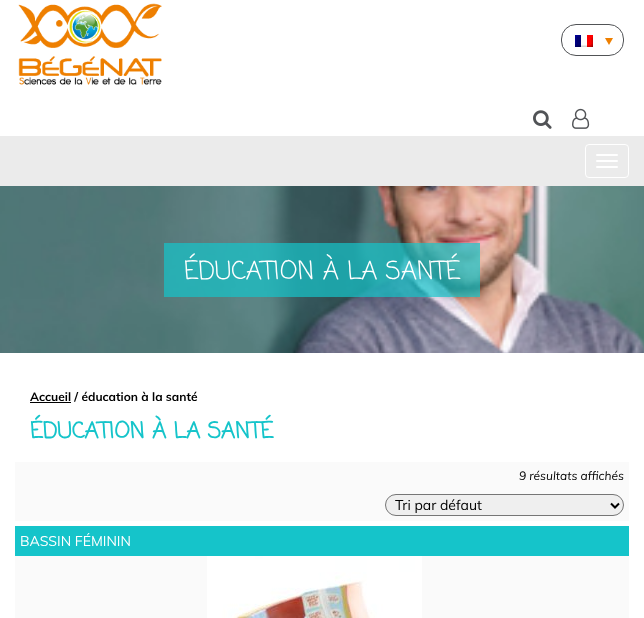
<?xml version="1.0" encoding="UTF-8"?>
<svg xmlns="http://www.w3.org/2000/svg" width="644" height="618">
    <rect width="100%" height="100%" fill="#FFFFFF"/>
    <image x="18" y="3" width="144" height="82" href="img_01.png"/>
    <rect x="561.5" y="24.5" width="62" height="31" rx="14.5" fill="none" stroke="#515356"/>
    <image x="575" y="35" width="18" height="12" href="img_02.png"/>
    <path d="M 605 38 H 613 L 609 45 Z" fill="#EE7F00"/>
    <image x="533" y="110" width="19" height="19" href="img_03.png"/>
    <image x="572" y="108" width="18" height="21" href="img_04.png"/>
    <rect x="0" y="136" width="644" height="50" fill="#EBEBEB"/>
    <rect x="585.5" y="144.5" width="43" height="33" rx="3.5" fill="none" stroke="#FFFFFF"/>
    <rect x="596" y="154" width="22" height="2" rx="1" fill="#FFFFFF"/>
    <rect x="596" y="160" width="22" height="2" rx="1" fill="#FFFFFF"/>
    <rect x="596" y="166" width="22" height="2" rx="1" fill="#FFFFFF"/>
    <image x="0" y="186" width="644" height="167" href="img_05.png"/>
    <rect x="164" y="243" width="316" height="54" fill="#15C4CA" fill-opacity="0.7"/>
    <text x="184" y="279" font-family="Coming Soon" font-size="25" fill="#FFFFFF">ÉDUCATION À LA SANTÉ</text>
    <text x="30" y="401" font-family="Muli" font-size="12" font-weight="700" fill="#000000">Accueil / éducation à la santé</text>
    <rect x="30" y="402" width="41" height="1" fill="#000000"/>
    <text x="30" y="438" font-family="Coming Soon" font-size="22" font-weight="700" fill="#15C4CA">ÉDUCATION À LA SANTÉ</text>
    <rect x="15" y="462" width="614" height="59" fill="#FAFAFA"/>
    <text x="519" y="480" font-family="Muli" font-size="12" font-style="italic" fill="#000000">9 résultats affichés</text>
    <rect x="385.5" y="494.5" width="238" height="21" rx="10.5" fill="#EFEFEF" stroke="#767676"/>
    <path d="M 611 503.5 L 615 507.5 L 619 503.5" fill="none" stroke="#000000" stroke-width="2"/>
    <text x="395" y="510" font-family="Muli" font-size="14" fill="#000000">Tri par défaut</text>
    <rect x="15" y="556" width="614" height="62" fill="#FAFAFA"/>
    <rect x="15" y="526" width="614" height="30" fill="#15C4CA"/>
    <text x="20" y="546" font-family="Muli" font-size="14" fill="#FFFFFF">BASSIN FÉMININ</text>
    <image x="207" y="556" width="215" height="62" href="img_06.png"/>
</svg>
